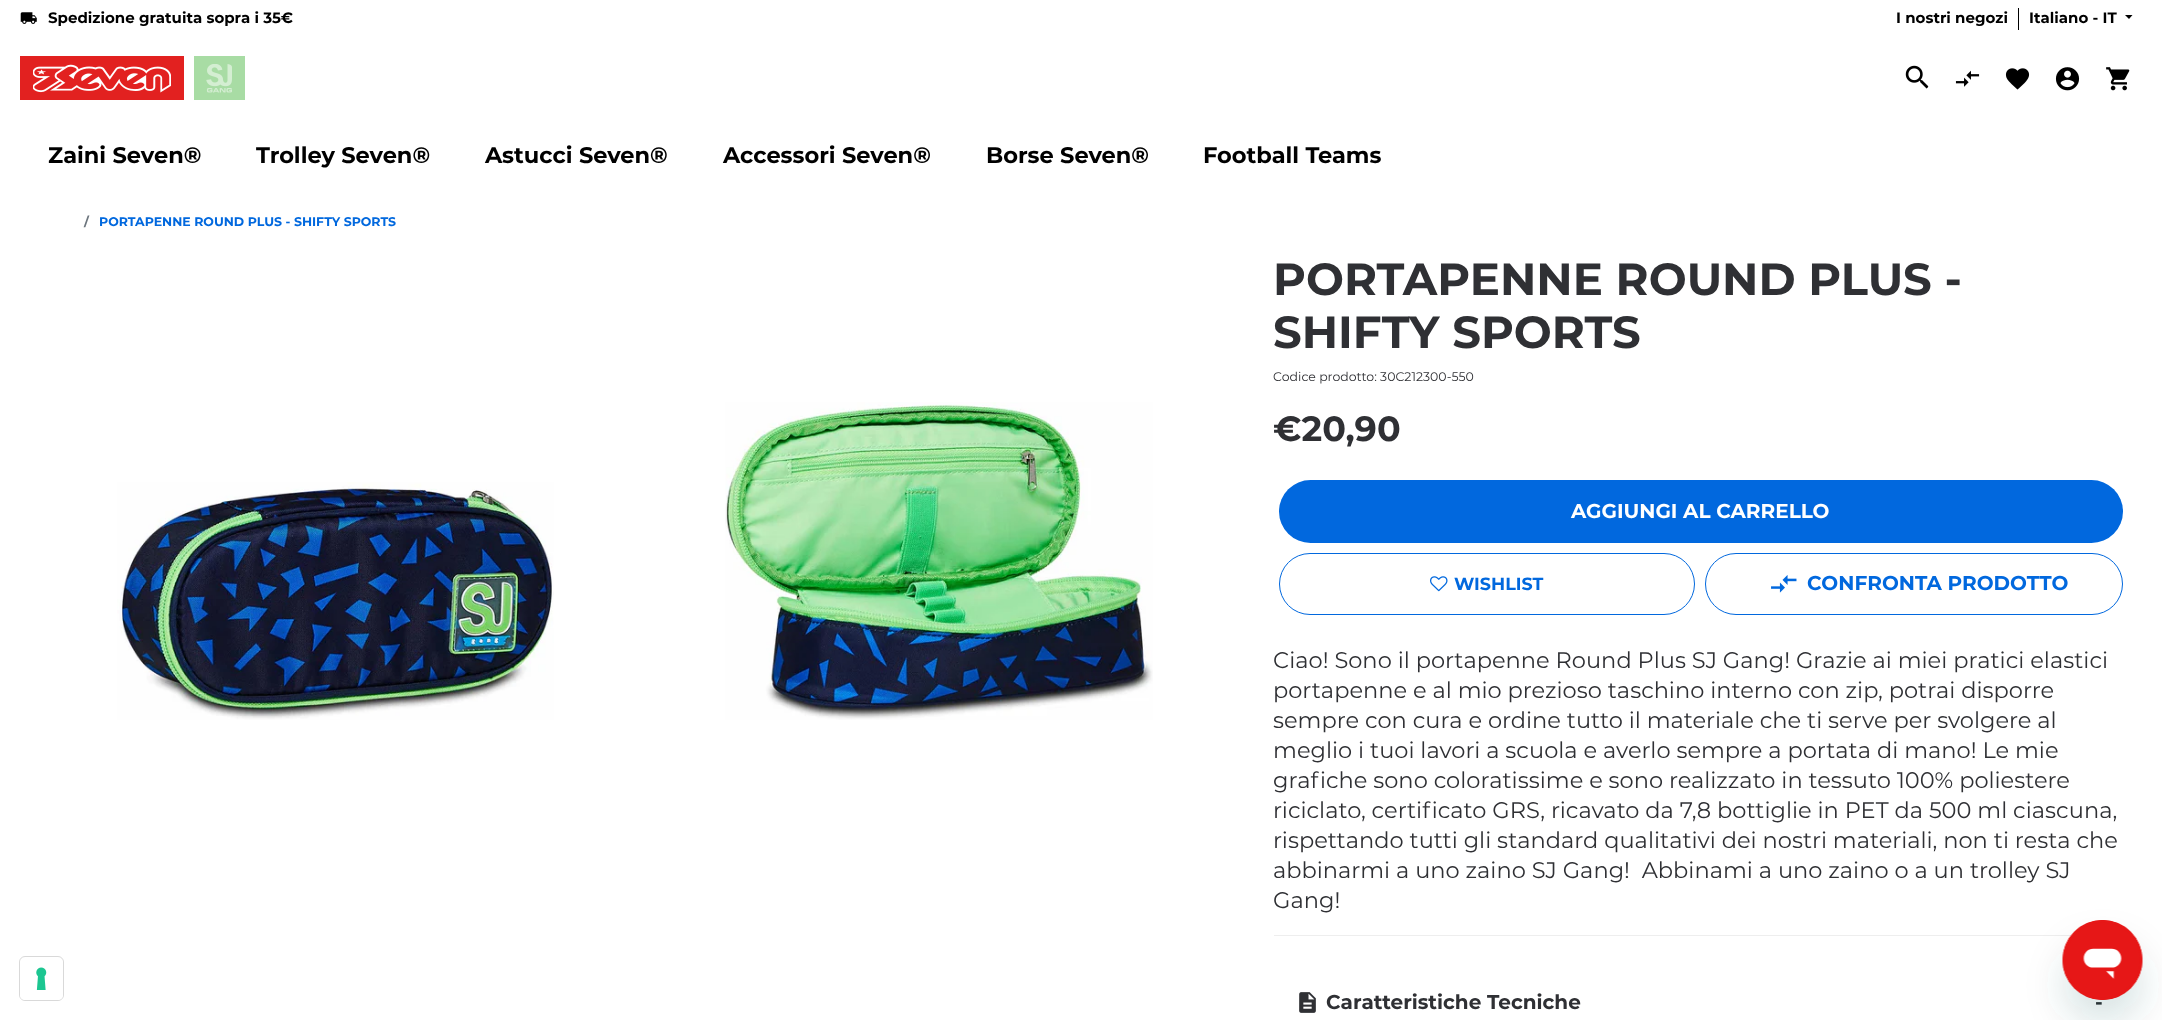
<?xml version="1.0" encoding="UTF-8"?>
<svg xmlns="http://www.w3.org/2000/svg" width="2162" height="1020">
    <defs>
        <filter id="blur1" x="-50%" y="-200%" width="200%" height="500%"><feGaussianBlur stdDeviation="19"/></filter>
    </defs>
    <rect width="100%" height="100%" fill="#FFFFFF"/>
    <image x="20" y="12" width="17" height="12" href="img_01.png"/>
    <text x="48" y="23" font-family="Montserrat" font-size="15" font-weight="700" fill="#000000">Spedizione gratuita sopra i 35€</text>
    <rect x="2018" y="8" width="1" height="22" fill="#000000"/>
    <text x="1896" y="23" font-family="Montserrat" font-size="15" font-weight="700" fill="#000000">I nostri negozi</text>
    <text x="2029" y="23" font-family="Montserrat" font-size="15" font-weight="700" fill="#000000">Italiano - IT</text>
    <path d="M 2125 15 H 2132.5 L 2129 19 Z" fill="#000000"/>
    <rect x="20" y="56" width="164" height="44" fill="#E22120"/>
    <image x="33" y="64" width="138" height="29" href="img_02.png"/>
    <rect x="194" y="56" width="51" height="44" fill="#A8DCA4"/>
    <image x="206" y="64" width="26" height="29" href="img_03.png"/>
    <image x="1905" y="65" width="24" height="24" href="img_04.png"/>
    <image x="1955" y="70" width="25" height="17" href="img_05.png"/>
    <image x="2005" y="68" width="25" height="22" href="img_06.png"/>
    <image x="2055" y="67" width="25" height="24" href="img_07.png"/>
    <image x="2106" y="67" width="24" height="24" href="img_08.png"/>
    <text x="48" y="163" font-family="Montserrat" font-size="22.5" font-weight="700" fill="#000000">Zaini Seven®</text>
    <text x="256" y="163" font-family="Montserrat" font-size="22.5" font-weight="700" fill="#000000">Trolley Seven®</text>
    <text x="485" y="163" font-family="Montserrat" font-size="22.5" font-weight="700" fill="#000000">Astucci Seven®</text>
    <text x="723" y="163" font-family="Montserrat" font-size="22.5" font-weight="700" fill="#000000">Accessori Seven®</text>
    <text x="986" y="163" font-family="Montserrat" font-size="22.5" font-weight="700" fill="#000000">Borse Seven®</text>
    <text x="1203" y="163" font-family="Montserrat" font-size="22.5" font-weight="700" fill="#000000">Football Teams</text>
    <text x="84" y="226" font-family="Montserrat" font-size="12.5" font-weight="700" fill="#6C757D">/</text>
    <text x="99" y="226" font-family="Montserrat" font-size="12.5" font-weight="700" fill="#0168DE">PORTAPENNE ROUND PLUS - SHIFTY SPORTS</text>
    <image x="117" y="482" width="437" height="238" href="img_09.png"/>
    <image x="725" y="402" width="428" height="318" href="img_10.png"/>
    <text font-family="Montserrat" font-size="45" font-weight="700" fill="#2F3034">
        <tspan x="1273" y="295">PORTAPENNE ROUND PLUS -</tspan>
        <tspan x="1273" y="348">SHIFTY SPORTS</tspan>
    </text>
    <text x="1273" y="381" font-family="Montserrat" font-size="12.5" fill="#2F3034">Codice prodotto: 30C212300-550</text>
    <text x="1273" y="441" font-family="Montserrat" font-size="35" font-weight="700" fill="#2F3034">€20,90</text>
    <rect x="1279" y="480" width="844" height="63" rx="31.5" fill="#0168DE"/>
    <text x="1571" y="518" font-family="Montserrat" font-size="20" font-weight="700" fill="#FFFFFF">AGGIUNGI AL CARRELLO</text>
    <rect x="1279.5" y="553.5" width="415" height="61" rx="30.5" fill="none" stroke="#0168DE"/>
    <image x="1430" y="576" width="18" height="16" href="img_11.png"/>
    <text x="1454" y="590" font-family="Montserrat" font-size="17.5" font-weight="700" fill="#0168DE">WISHLIST</text>
    <rect x="1705.5" y="553.5" width="417" height="61" rx="30.5" fill="none" stroke="#0168DE"/>
    <image x="1771" y="575" width="26" height="18" href="img_12.png"/>
    <text x="1807" y="590" font-family="Montserrat" font-size="20" font-weight="700" fill="#0168DE">CONFRONTA PRODOTTO</text>
    <text font-family="Montserrat" font-size="22.5" fill="#2F3034" xml:space="preserve"><tspan x="1273" y="668">Ciao! Sono il portapenne Round Plus SJ Gang! Grazie ai miei pratici elastici</tspan><tspan x="1273" y="698">portapenne e al mio prezioso taschino interno con zip, potrai disporre</tspan><tspan x="1273" y="728">sempre con cura e ordine tutto il materiale che ti serve per svolgere al</tspan><tspan x="1273" y="758">meglio i tuoi lavori a scuola e averlo sempre a portata di mano! Le mie</tspan><tspan x="1273" y="788">grafiche sono coloratissime e sono realizzato in tessuto 100% poliestere</tspan><tspan x="1273" y="818">riciclato, certificato GRS, ricavato da 7,8 bottiglie in PET da 500 ml ciascuna,</tspan><tspan x="1273" y="848">rispettando tutti gli standard qualitativi dei nostri materiali, non ti resta che</tspan><tspan x="1273" y="878">abbinarmi a uno zaino SJ Gang!  Abbinami a uno zaino o a un trolley SJ</tspan><tspan x="1273" y="908">Gang!</tspan></text>
    <rect x="1274" y="935" width="798" height="1" fill="#EEEEEE"/>
    <image x="1299" y="992" width="17" height="21" href="img_13.png"/>
    <text x="1326" y="1009" font-family="Montserrat" font-size="20" font-weight="700" fill="#2F3034">Caratteristiche Tecniche</text>
    <text x="2095" y="1009" font-family="Montserrat" font-size="20" font-weight="700" fill="#2F3034">-</text>
    <rect x="19.5" y="956.5" width="44" height="44" rx="5.5" fill="none" stroke="#D9D9D9"/>
    <rect x="20" y="958" width="43" height="42" rx="5" fill="#FFFFFF"/>
    <image x="36" y="967" width="11" height="23" href="img_14.png"/>
    <rect x="2063" y="945" width="80" height="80" rx="40" fill="#17494D" fill-opacity="0.15" filter="url(#blur1)"/>
    <image x="2062" y="920" width="81" height="80" href="img_15.png"/>
</svg>
